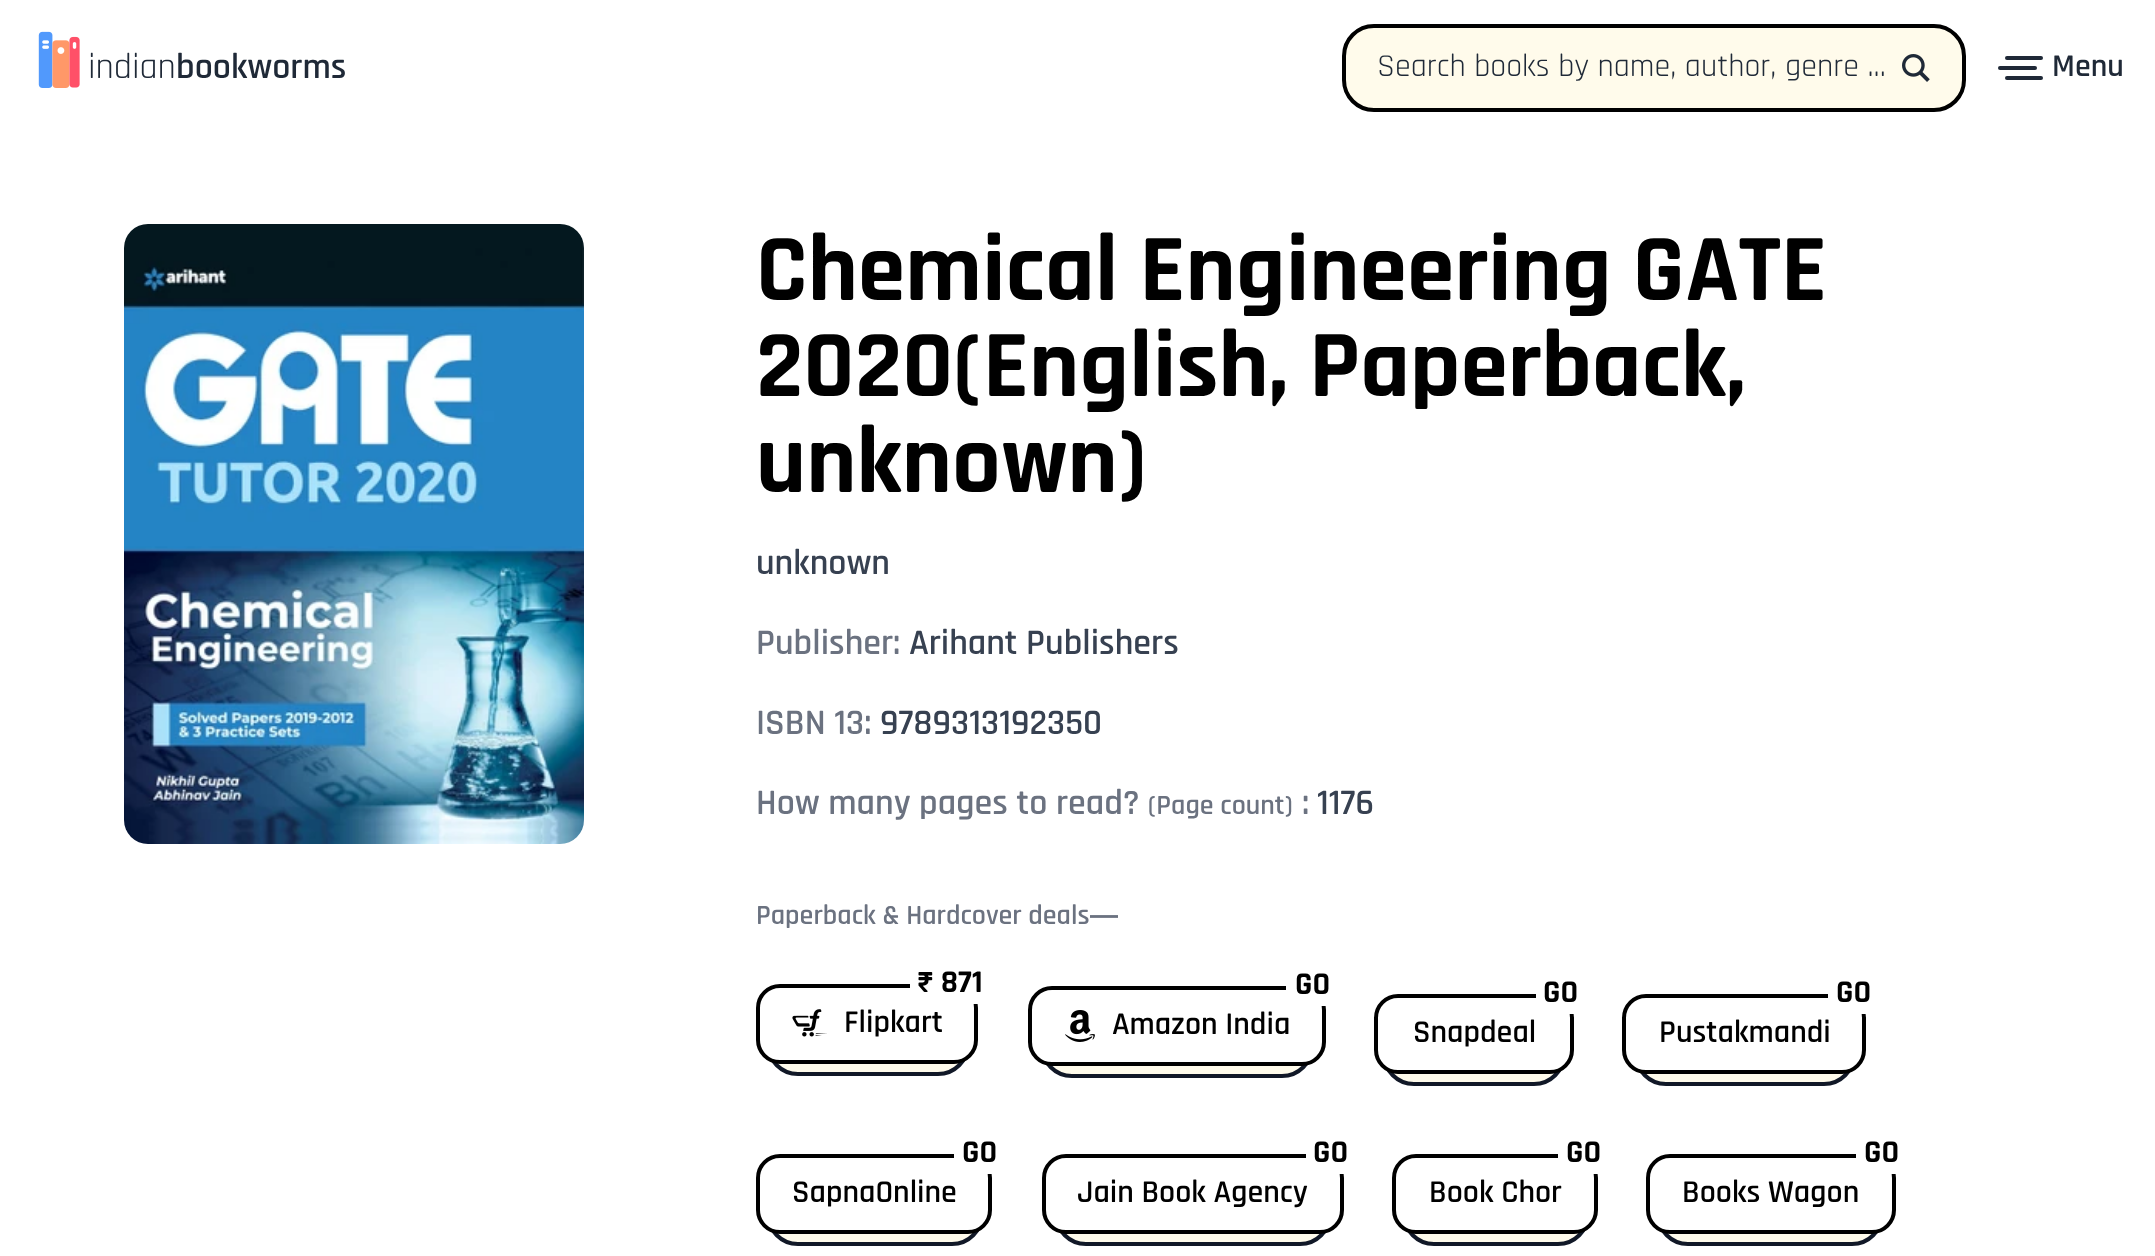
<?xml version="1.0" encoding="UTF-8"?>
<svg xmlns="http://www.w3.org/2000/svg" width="2155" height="1256">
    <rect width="100%" height="100%" fill="#FFFFFF"/>
    <image x="38" y="31" width="42" height="57" href="img_01.png"/>
    <text x="88" y="78" font-family="Rajdhani" font-size="36" fill="#1F2937">indian</text>
    <text x="176" y="78" font-family="Rajdhani" font-size="36" font-weight="600" fill="#1F2937">bookworms</text>
    <rect x="1344" y="26" width="620" height="84" rx="30" fill="#FFFBEB" stroke="#000000" stroke-width="4"/>
    <text x="1377" y="76" font-family="Rajdhani" font-size="32" fill="#1F2937">Search books by name, author, genre ...</text>
    <image x="1902" y="54" width="28" height="28" href="img_02.png"/>
    <rect x="2005" y="56" width="38" height="4" rx="2" fill="#1F2937"/>
    <rect x="1998" y="66" width="39" height="4" rx="2" fill="#1F2937"/>
    <rect x="2005" y="76" width="38" height="4" rx="2" fill="#1F2937"/>
    <text x="2052" y="76" font-family="Rajdhani" font-size="32" font-weight="600" fill="#1F2937">Menu</text>
    <image x="124" y="224" width="460" height="620" href="img_03.png"/>
    <text font-family="Rajdhani" font-size="96" font-weight="700" fill="#000000">
        <tspan x="756" y="300">Chemical Engineering GATE</tspan>
        <tspan x="756" y="396">2020(English, Paperback,</tspan>
        <tspan x="756" y="492">unknown)</tspan>
    </text>
    <text x="756" y="574" font-family="Rajdhani" font-size="36" font-weight="600" fill="#374151">unknown</text>
    <text x="756" y="654" font-family="Rajdhani" font-size="36" font-weight="600" fill="#6B7280">Publisher:</text>
    <text x="909" y="654" font-family="Rajdhani" font-size="36" font-weight="600" fill="#374151">Arihant Publishers</text>
    <text x="756" y="734" font-family="Rajdhani" font-size="36" font-weight="600" fill="#6B7280">ISBN 13:</text>
    <text x="880" y="734" font-family="Rajdhani" font-size="36" font-weight="600" fill="#374151">9789313192350</text>
    <text x="756" y="814" font-family="Rajdhani" font-size="36" font-weight="600" fill="#6B7280">How many pages to read?</text>
    <text x="1148" y="814" font-family="Rajdhani" font-size="28" font-weight="600" fill="#6B7280">(Page count)</text>
    <text x="1302" y="814" font-family="Rajdhani" font-size="36" font-weight="600" fill="#6B7280">:</text>
    <text x="1317" y="814" font-family="Rajdhani" font-size="36" font-weight="600" fill="#374151">1176</text>
    <text x="756" y="924" font-family="Rajdhani" font-size="28" font-weight="600" fill="#6B7280">Paperback &amp; Hardcover deals</text>
    <text x="1090" y="924" font-family="Liberation Sans" font-size="28" font-weight="700" fill="#6B7280">―</text>
    <rect x="768" y="998" width="200" height="76" rx="30" fill="#FFFBEB" stroke="#111827" stroke-width="4"/>
    <rect x="758" y="986" width="218" height="76" rx="22" fill="#FFFFFF" stroke="#000000" stroke-width="4"/>
    <rect x="910" y="964" width="80" height="40" rx="8" fill="#FFFFFF"/>
    <text x="917" y="992" font-family="Rajdhani" font-size="32" font-weight="700" fill="#000000">₹ 871</text>
    <image x="792" y="1009" width="35" height="28" href="img_04.png"/>
    <text x="844" y="1032" font-family="Rajdhani" font-size="32" font-weight="600" fill="#000000">Flipkart</text>
    <rect x="1042" y="1000" width="270" height="76" rx="30" fill="#FFFBEB" stroke="#111827" stroke-width="4"/>
    <rect x="1030" y="988" width="294" height="76" rx="22" fill="#FFFFFF" stroke="#000000" stroke-width="4"/>
    <rect x="1286" y="966" width="52" height="40" rx="8" fill="#FFFFFF"/>
    <text x="1295" y="994" font-family="Rajdhani" font-size="32" font-weight="700" fill="#000000">GO</text>
    <image x="1065" y="1010" width="30" height="32" href="img_05.png"/>
    <text x="1112" y="1034" font-family="Rajdhani" font-size="32" font-weight="600" fill="#000000">Amazon India</text>
    <rect x="1384" y="1008" width="180" height="76" rx="30" fill="#FFFBEB" stroke="#111827" stroke-width="4"/>
    <rect x="1376" y="996" width="196" height="76" rx="22" fill="#FFFFFF" stroke="#000000" stroke-width="4"/>
    <rect x="1536" y="974" width="50" height="40" rx="8" fill="#FFFFFF"/>
    <text x="1543" y="1002" font-family="Rajdhani" font-size="32" font-weight="700" fill="#000000">GO</text>
    <text x="1413" y="1042" font-family="Rajdhani" font-size="32" font-weight="600" fill="#000000">Snapdeal</text>
    <rect x="1636" y="1008" width="218" height="76" rx="30" fill="#FFFBEB" stroke="#111827" stroke-width="4"/>
    <rect x="1624" y="996" width="240" height="76" rx="22" fill="#FFFFFF" stroke="#000000" stroke-width="4"/>
    <rect x="1828" y="974" width="50" height="40" rx="8" fill="#FFFFFF"/>
    <text x="1836" y="1002" font-family="Rajdhani" font-size="32" font-weight="700" fill="#000000">GO</text>
    <text x="1659" y="1042" font-family="Rajdhani" font-size="32" font-weight="600" fill="#000000">Pustakmandi</text>
    <rect x="768" y="1168" width="214" height="76" rx="30" fill="#FFFBEB" stroke="#111827" stroke-width="4"/>
    <rect x="758" y="1156" width="232" height="76" rx="22" fill="#FFFFFF" stroke="#000000" stroke-width="4"/>
    <rect x="954" y="1134" width="50" height="40" rx="8" fill="#FFFFFF"/>
    <text x="962" y="1162" font-family="Rajdhani" font-size="32" font-weight="700" fill="#000000">GO</text>
    <text x="792" y="1202" font-family="Rajdhani" font-size="32" font-weight="600" fill="#000000">SapnaOnline</text>
    <rect x="1056" y="1168" width="274" height="76" rx="30" fill="#FFFBEB" stroke="#111827" stroke-width="4"/>
    <rect x="1044" y="1156" width="298" height="76" rx="22" fill="#FFFFFF" stroke="#000000" stroke-width="4"/>
    <rect x="1306" y="1134" width="50" height="40" rx="8" fill="#FFFFFF"/>
    <text x="1313" y="1162" font-family="Rajdhani" font-size="32" font-weight="700" fill="#000000">GO</text>
    <text x="1077" y="1202" font-family="Rajdhani" font-size="32" font-weight="600" fill="#000000">Jain Book Agency</text>
    <rect x="1404" y="1168" width="184" height="76" rx="30" fill="#FFFBEB" stroke="#111827" stroke-width="4"/>
    <rect x="1394" y="1156" width="202" height="76" rx="22" fill="#FFFFFF" stroke="#000000" stroke-width="4"/>
    <rect x="1558" y="1134" width="52" height="40" rx="8" fill="#FFFFFF"/>
    <text x="1566" y="1162" font-family="Rajdhani" font-size="32" font-weight="700" fill="#000000">GO</text>
    <text x="1429" y="1202" font-family="Rajdhani" font-size="32" font-weight="600" fill="#000000">Book Chor</text>
    <rect x="1658" y="1168" width="224" height="76" rx="30" fill="#FFFBEB" stroke="#111827" stroke-width="4"/>
    <rect x="1648" y="1156" width="246" height="76" rx="22" fill="#FFFFFF" stroke="#000000" stroke-width="4"/>
    <rect x="1856" y="1134" width="52" height="40" rx="8" fill="#FFFFFF"/>
    <text x="1864" y="1162" font-family="Rajdhani" font-size="32" font-weight="700" fill="#000000">GO</text>
    <text x="1682" y="1202" font-family="Rajdhani" font-size="32" font-weight="600" fill="#000000">Books Wagon</text>
</svg>
